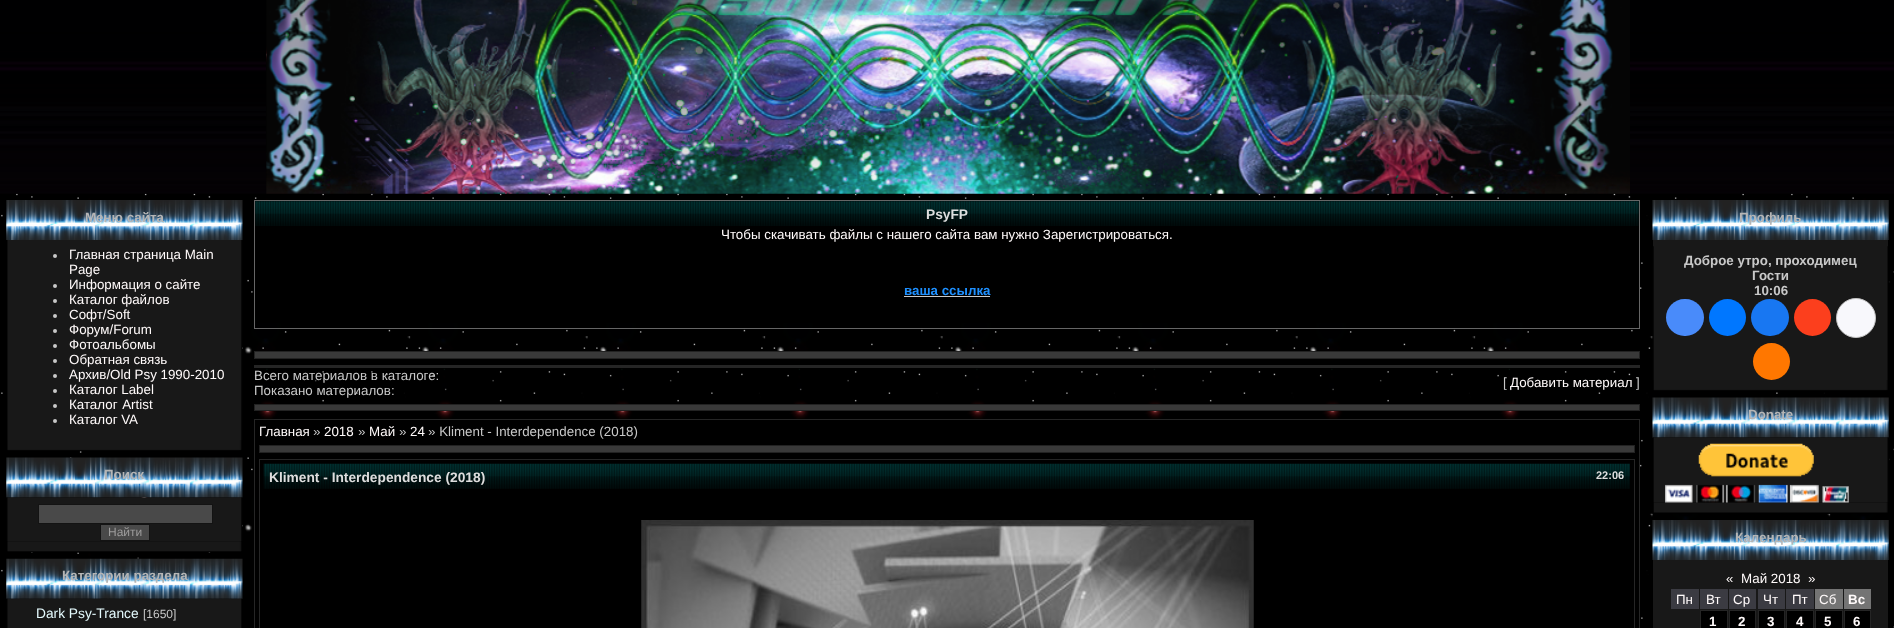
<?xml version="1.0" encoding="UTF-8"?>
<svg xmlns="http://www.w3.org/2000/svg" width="1894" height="628">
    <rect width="100%" height="100%" fill="#000000"/>
    <image x="1" y="0" width="1893" height="628" href="img_01.png"/>
    <image x="0" y="0" width="267" height="194" href="img_02.png"/>
    <image x="266" y="0" width="1364" height="194" href="img_03.png"/>
    <image x="1630" y="0" width="264" height="194" href="img_04.png"/>
    <image x="6" y="200" width="237" height="40" href="img_05.png"/>
    <text x="85" y="222" font-family="Liberation Sans" font-size="13.35" font-weight="700" fill="#B5B5B5">Меню сайта</text>
    <image x="7" y="240" width="236" height="200" href="img_06.png"/>
    <circle cx="55" cy="256" r="2" fill="#C8C8C8"/>
    <text font-family="Liberation Sans" font-size="13.35" fill="#FFFAFA">
        <tspan x="69" y="259">Главная страница Main</tspan>
        <tspan x="69" y="274">Page</tspan>
    </text>
    <circle cx="55" cy="286" r="2" fill="#C8C8C8"/>
    <text x="69" y="289" font-family="Liberation Sans" font-size="13.35" fill="#FFFAFA">Информация о сайте</text>
    <circle cx="55" cy="301" r="2" fill="#C8C8C8"/>
    <text x="69" y="304" font-family="Liberation Sans" font-size="13.35" fill="#FFFAFA">Каталог файлов</text>
    <circle cx="55" cy="316" r="2" fill="#C8C8C8"/>
    <text x="69" y="319" font-family="Liberation Sans" font-size="13.35" fill="#FFFAFA">Софт/Soft</text>
    <circle cx="55" cy="331" r="2" fill="#C8C8C8"/>
    <text x="69" y="334" font-family="Liberation Sans" font-size="13.35" fill="#FFFAFA">Форум/Forum</text>
    <circle cx="55" cy="346" r="2" fill="#C8C8C8"/>
    <text x="69" y="349" font-family="Liberation Sans" font-size="13.35" fill="#FFFAFA">Фотоальбомы</text>
    <circle cx="55" cy="361" r="2" fill="#C8C8C8"/>
    <text x="69" y="364" font-family="Liberation Sans" font-size="13.35" fill="#FFFAFA">Обратная связь</text>
    <circle cx="55" cy="376" r="2" fill="#C8C8C8"/>
    <text x="69" y="379" font-family="Liberation Sans" font-size="13.35" fill="#FFFAFA">Архив/Old Psy 1990-2010</text>
    <circle cx="55" cy="391" r="2" fill="#C8C8C8"/>
    <text x="69" y="394" font-family="Liberation Sans" font-size="13.35" fill="#FFFAFA">Каталог Label</text>
    <circle cx="55" cy="406" r="2" fill="#C8C8C8"/>
    <text x="69" y="409" word-spacing="1" font-family="Liberation Sans" font-size="13.35" fill="#FFFAFA">Каталог Artist</text>
    <circle cx="55" cy="421" r="2" fill="#C8C8C8"/>
    <text x="69" y="424" font-family="Liberation Sans" font-size="13.35" fill="#FFFAFA">Каталог VA</text>
    <image x="7" y="440" width="235" height="12" href="img_07.png"/>
    <image x="6" y="457" width="237" height="41" href="img_08.png"/>
    <text x="104" y="479" font-family="Liberation Sans" font-size="13.35" font-weight="700" fill="#B5B5B5">Поиск</text>
    <image x="6" y="497" width="237" height="45" href="img_09.png"/>
    <rect x="38.5" y="504.5" width="174" height="19" fill="#494949" stroke="#131313"/>
    <rect x="100.5" y="524.5" width="49" height="16" fill="#494949" stroke="#131313"/>
    <text x="108" y="536" font-family="Liberation Sans" font-size="12" fill="#9D9C9C">Найти</text>
    <image x="7" y="541" width="235" height="12" href="img_10.png"/>
    <image x="6" y="558" width="237" height="41" href="img_11.png"/>
    <text x="62" y="580" font-family="Liberation Sans" font-size="13.35" font-weight="700" fill="#B5B5B5">Категории раздела</text>
    <image x="6" y="598" width="236" height="30" href="img_12.png"/>
    <text x="36" y="618" font-family="Liberation Sans" font-size="13.75" fill="#E4FAFD">Dark Psy-Trance</text>
    <text x="143" y="618" font-family="Liberation Sans" font-size="12" fill="#C8C8C8">[1650]</text>
    <rect x="257" y="202" width="1366" height="121" fill="#000000"/>
    <rect x="254.5" y="200.5" width="1385" height="128" fill="none" stroke="#666666"/>
    <image x="255" y="201" width="1384" height="25" href="img_13.png"/>
    <text x="926" y="219" font-family="Liberation Sans" font-size="13.75" font-weight="700" fill="#DEDEDE">PsyFP</text>
    <text x="721" y="239" font-family="Liberation Sans" font-size="13.35" fill="#FFFAFA">Чтобы скачивать файлы с нашего сайта вам нужно Зарегистрироваться.</text>
    <text x="904" y="295" font-family="Liberation Sans" font-size="13.35" font-weight="700" fill="#1E90FF">ваша ссылка</text>
    <rect x="904" y="296" width="86" height="1" fill="#C8C8C8"/>
    <rect x="254.5" y="351.5" width="1385" height="7" fill="#393939" stroke="#222222"/>
    <rect x="254" y="365" width="1386" height="3" fill="#252525"/>
    <text font-family="Liberation Sans" font-size="13.35" fill="#C8C8C8">
        <tspan x="254" y="380">Всего материалов в каталоге:</tspan>
        <tspan x="254" y="395">Показано материалов:</tspan>
    </text>
    <text x="1503" y="387" font-family="Liberation Sans" font-size="13.35" fill="#C8C8C8">[</text>
    <text x="1510" y="387" font-family="Liberation Sans" font-size="13.35" fill="#FFFAFA">Добавить материал</text>
    <text x="1636" y="387" font-family="Liberation Sans" font-size="13.35" fill="#C8C8C8">]</text>
    <rect x="254.5" y="404.5" width="1385" height="6" fill="#393939" stroke="#222222"/>
    <rect x="255" y="420" width="1378" height="208" fill="#000000"/>
    <rect x="254.5" y="419.5" width="1385" height="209" fill="none" stroke="#252525"/>
    <text x="259" y="436" font-family="Liberation Sans" font-size="13.35" fill="#FFFAFA">Главная</text>
    <text x="313" y="436" font-family="Liberation Sans" font-size="13.35" fill="#C8C8C8">»</text>
    <text x="324" y="436" font-family="Liberation Sans" font-size="13.35" fill="#FFFAFA">2018</text>
    <text x="358" y="436" font-family="Liberation Sans" font-size="13.35" fill="#C8C8C8">»</text>
    <text x="369" y="436" font-family="Liberation Sans" font-size="13.35" fill="#FFFAFA">Май</text>
    <text x="399" y="436" font-family="Liberation Sans" font-size="13.35" fill="#C8C8C8">»</text>
    <text x="410" y="436" font-family="Liberation Sans" font-size="13.35" fill="#FFFAFA">24</text>
    <text x="428" y="436" font-family="Liberation Sans" font-size="13.35" fill="#C8C8C8">» Kliment - Interdependence (2018)</text>
    <rect x="259.5" y="445.5" width="1375" height="7" fill="#393939" stroke="#222222"/>
    <rect x="259.5" y="459.5" width="1375" height="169" fill="none" stroke="#252525"/>
    <image x="263" y="463" width="1367" height="26" href="img_14.png"/>
    <text x="269" y="482" font-family="Liberation Sans" font-size="13.75" font-weight="700" fill="#DEDEDE">Kliment - Interdependence (2018)</text>
    <text x="1596" y="479" font-family="Liberation Sans" font-size="11" font-weight="700" fill="#DEDEDE">22:06</text>
    <image x="641" y="520" width="613" height="108" href="img_15.png"/>
    <image x="1652" y="200" width="237" height="40" href="img_16.png"/>
    <text x="1739" y="222" font-family="Liberation Sans" font-size="13.35" font-weight="700" fill="#B5B5B5">Профиль</text>
    <rect x="1653" y="240" width="235" height="7" fill="#181818"/>
    <image x="1652" y="246" width="236" height="134" href="img_17.png"/>
    <text x="1684" y="265" font-family="Liberation Sans" font-size="13.35" font-weight="700" fill="#C8C8C8">Доброе утро, проходимец</text>
    <text x="1752" y="280" font-family="Liberation Sans" font-size="13.35" font-weight="700" fill="#C8C8C8">Гости</text>
    <text x="1754" y="295" font-family="Liberation Sans" font-size="13.35" font-weight="700" fill="#C8C8C8">10:06</text>
    <rect x="1666" y="299" width="38" height="37" rx="18.5" fill="#498BFA"/>
    <circle cx="1727.5" cy="317.5" r="18.5" fill="#0077FF"/>
    <rect x="1751" y="299" width="38" height="37" rx="18.5" fill="#1877F2"/>
    <circle cx="1812.5" cy="317.5" r="18.5" fill="#FC3F1D"/>
    <circle cx="1856" cy="318" r="19.5" fill="#F8F8FC" stroke="#C4C4C4"/>
    <circle cx="1771.5" cy="361.5" r="18.5" fill="#FF7700"/>
    <image x="1653" y="380" width="235" height="11" href="img_18.png"/>
    <image x="1652" y="397" width="237" height="41" href="img_19.png"/>
    <text x="1748" y="419" font-family="Liberation Sans" font-size="13.35" font-weight="700" fill="#B5B5B5">Donate</text>
    <image x="1653" y="437" width="236" height="66" href="img_20.png"/>
    <image x="1652" y="502" width="236" height="12" href="img_22.png"/>
    <image x="1665" y="443" width="184" height="60" href="img_21.png"/>
    <image x="1652" y="520" width="237" height="40" href="img_23.png"/>
    <text x="1735" y="542" font-family="Liberation Sans" font-size="13.35" font-weight="700" fill="#B5B5B5">Календарь</text>
    <rect x="1653" y="560" width="235" height="68" fill="#181818"/>
    <text x="1726" y="583" font-family="Liberation Sans" font-size="13.35" fill="#FFFAFA">«</text>
    <text x="1741" y="583" font-family="Liberation Sans" font-size="13.35" fill="#FFFAFA">Май 2018</text>
    <text x="1808" y="583" font-family="Liberation Sans" font-size="13.35" fill="#FFFAFA">»</text>
    <rect x="1671" y="589" width="28" height="20" fill="#3B3B42"/>
    <text x="1676" y="604" font-family="Liberation Sans" font-size="13.35" fill="#FFFAFA">Пн</text>
    <rect x="1700" y="589" width="28" height="20" fill="#3B3B42"/>
    <text x="1706" y="604" font-family="Liberation Sans" font-size="13.35" fill="#FFFAFA">Вт</text>
    <rect x="1729" y="589" width="27" height="20" fill="#3B3B42"/>
    <text x="1733" y="604" font-family="Liberation Sans" font-size="13.35" fill="#FFFAFA">Ср</text>
    <rect x="1758" y="589" width="27" height="20" fill="#3B3B42"/>
    <text x="1763" y="604" font-family="Liberation Sans" font-size="13.35" fill="#FFFAFA">Чт</text>
    <rect x="1786" y="589" width="28" height="20" fill="#3B3B42"/>
    <text x="1792" y="604" font-family="Liberation Sans" font-size="13.35" fill="#FFFAFA">Пт</text>
    <rect x="1815" y="589" width="28" height="20" fill="#747474"/>
    <text x="1819" y="604" font-family="Liberation Sans" font-size="13.35" fill="#FFFAFA">Сб</text>
    <rect x="1844" y="589" width="27" height="20" fill="#747474"/>
    <text x="1848" y="604" font-family="Liberation Sans" font-size="13.35" font-weight="700" fill="#FFFAFA">Вс</text>
    <rect x="1700.5" y="610.5" width="27" height="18" fill="#000000" stroke="#252525"/>
    <text x="1709" y="626" font-family="Liberation Sans" font-size="13.35" font-weight="700" fill="#FFFAFA">1</text>
    <rect x="1729.5" y="610.5" width="26" height="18" fill="#000000" stroke="#252525"/>
    <text x="1738" y="626" font-family="Liberation Sans" font-size="13.35" font-weight="700" fill="#FFFAFA">2</text>
    <rect x="1758.5" y="610.5" width="26" height="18" fill="#000000" stroke="#252525"/>
    <text x="1767" y="626" font-family="Liberation Sans" font-size="13.35" font-weight="700" fill="#FFFAFA">3</text>
    <rect x="1786.5" y="610.5" width="27" height="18" fill="#000000" stroke="#252525"/>
    <text x="1796" y="626" font-family="Liberation Sans" font-size="13.35" font-weight="700" fill="#FFFAFA">4</text>
    <rect x="1815.5" y="610.5" width="27" height="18" fill="#000000" stroke="#252525"/>
    <text x="1824" y="626" font-family="Liberation Sans" font-size="13.35" font-weight="700" fill="#FFFAFA">5</text>
    <rect x="1844.5" y="610.5" width="26" height="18" fill="#000000" stroke="#252525"/>
    <text x="1853" y="626" font-family="Liberation Sans" font-size="13.35" font-weight="700" fill="#FFFAFA">6</text>
</svg>
